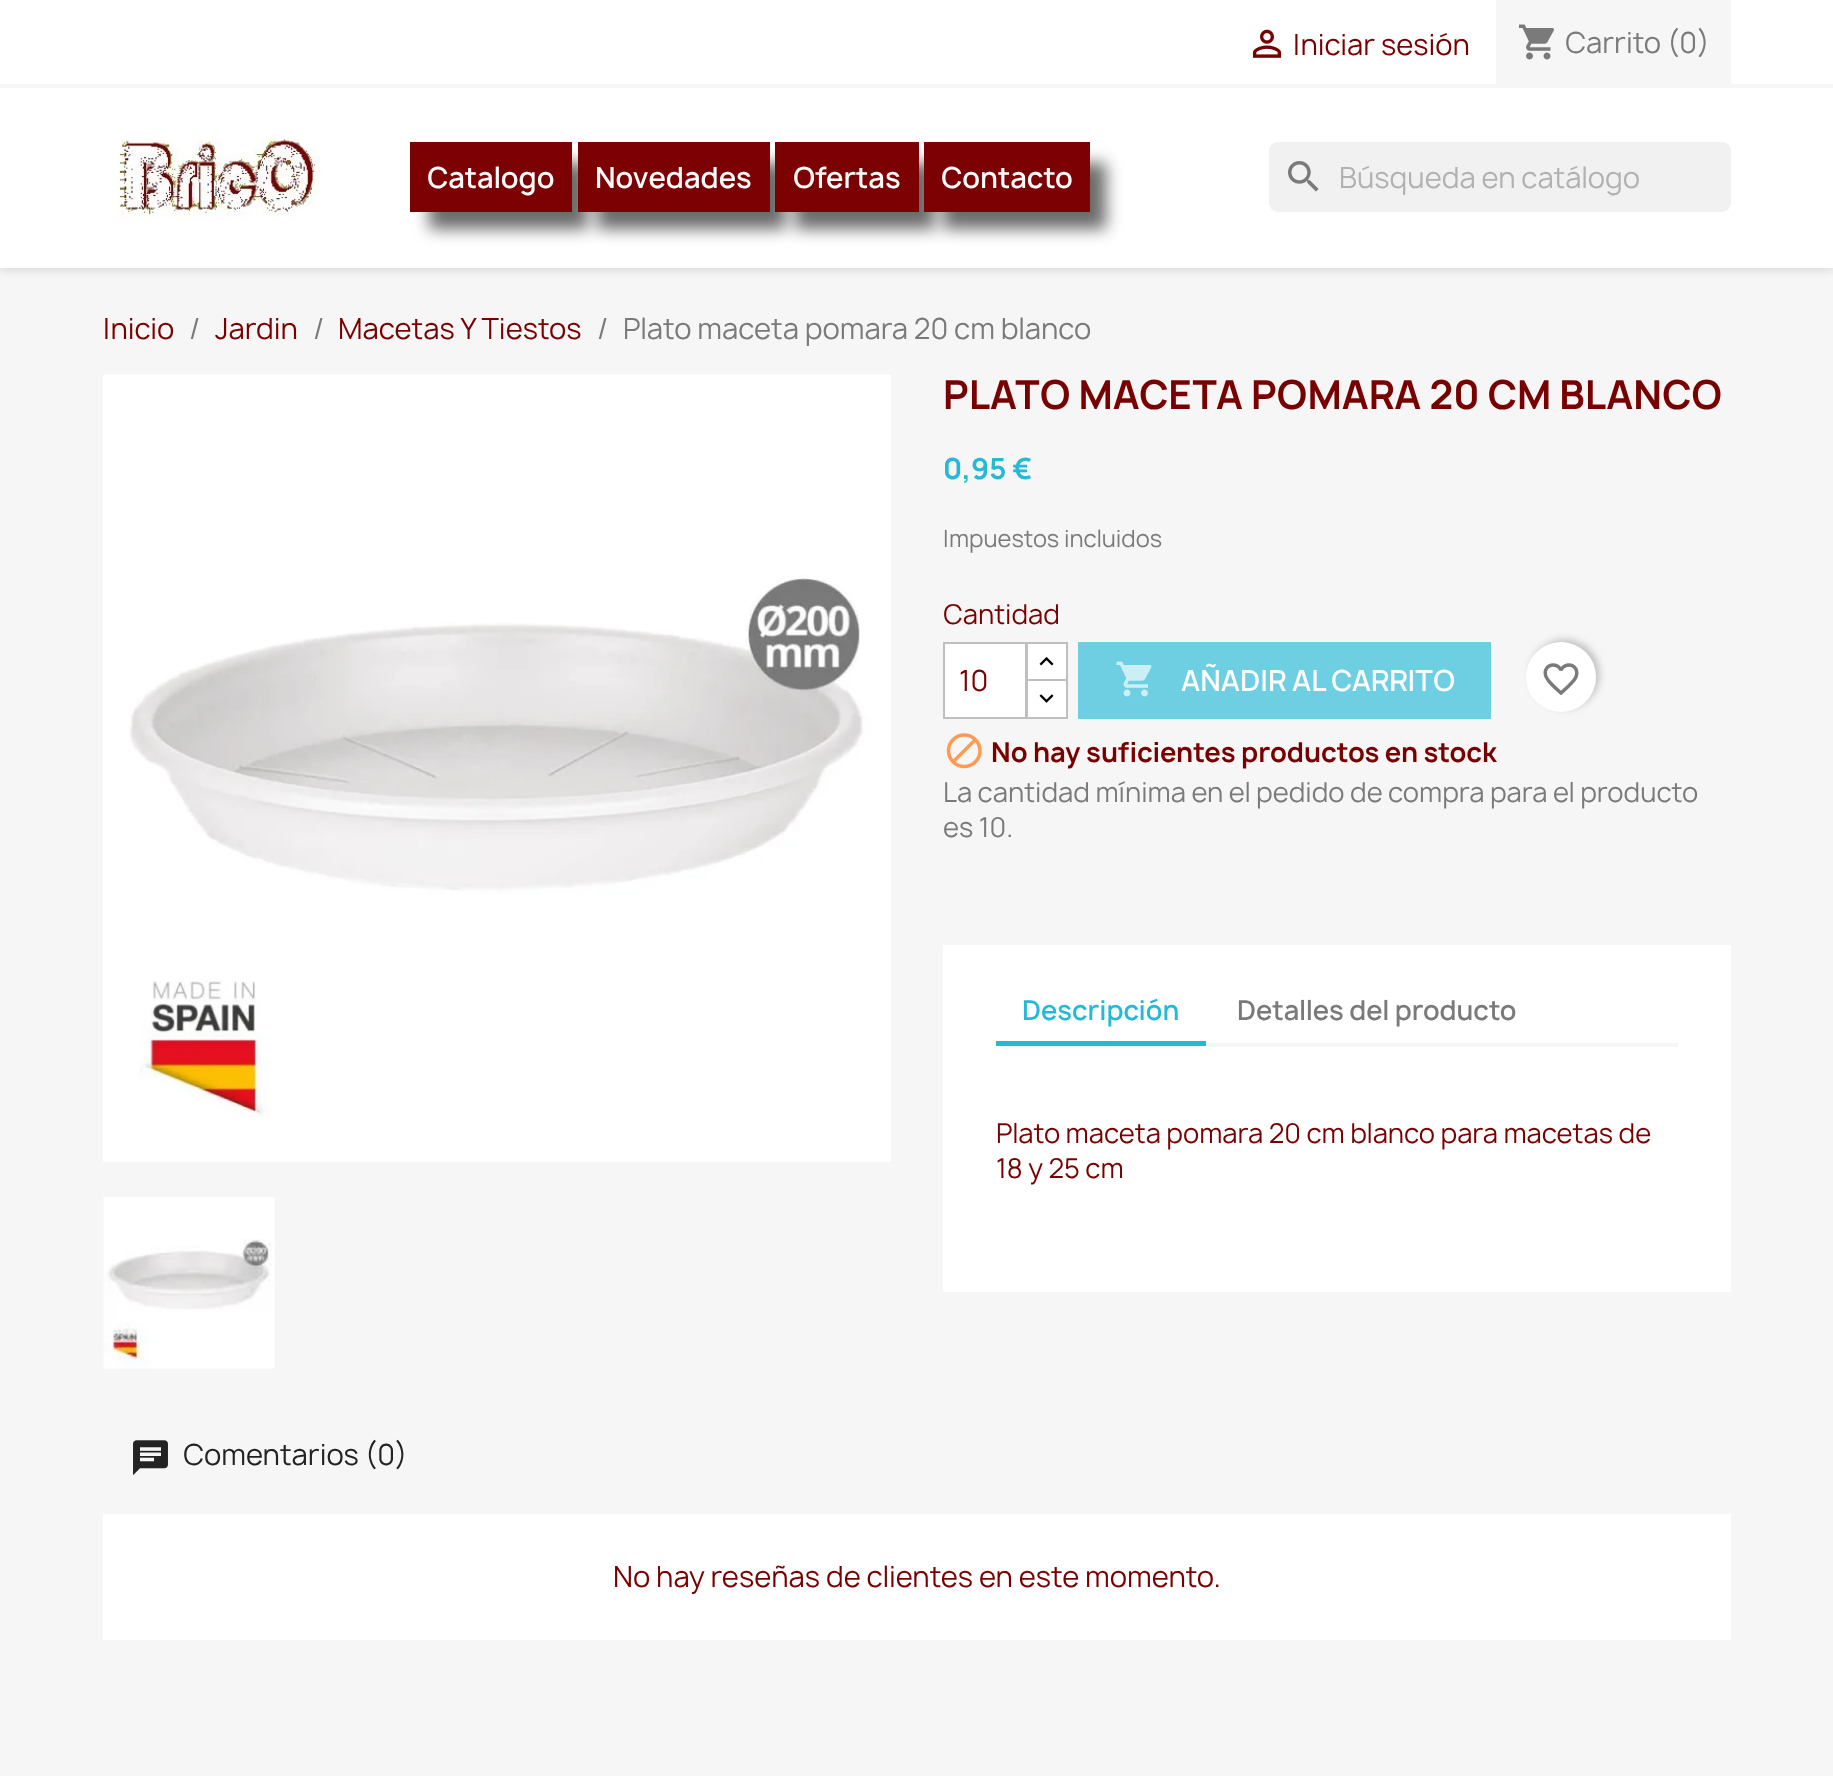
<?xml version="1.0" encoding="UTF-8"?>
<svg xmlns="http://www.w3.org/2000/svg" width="1833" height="1776">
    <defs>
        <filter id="blur1" x="-50%" y="-200%" width="200%" height="500%"><feGaussianBlur stdDeviation="4.5"/></filter>
        <filter id="blur2" x="-50%" y="-200%" width="200%" height="500%"><feGaussianBlur stdDeviation="8"/></filter>
        <filter id="blur3" x="-50%" y="-200%" width="200%" height="500%"><feGaussianBlur stdDeviation="3.5"/></filter>
    </defs>
    <rect width="100%" height="100%" fill="#F6F6F6"/>
    <rect x="0" y="4" width="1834" height="267" fill="#000000" fill-opacity="0.11" filter="url(#blur1)"/>
    <rect x="0" y="0" width="1833" height="268" fill="#FFFFFF"/>
    <rect x="0" y="84" width="1833" height="4" fill="#F6F6F6"/>
    <image x="1252" y="29" width="30" height="29" href="img_01.png"/>
    <text x="1293" y="55" font-family="Manrope" font-size="28" fill="#780000">Iniciar sesión</text>
    <rect x="1496" y="0" width="235" height="84" fill="#F6F6F6"/>
    <image x="1519" y="24" width="35" height="36" href="img_02.png"/>
    <text x="1565" y="53" font-family="Manrope" font-size="28" fill="#7A7A7A">Carrito (0)</text>
    <image x="119" y="139" width="202" height="81" href="img_03.png"/>
    <rect x="429" y="163" width="159" height="66" fill="#000000" fill-opacity="0.58" filter="url(#blur2)"/>
    <rect x="410" y="142" width="162" height="70" fill="#7C0102"/>
    <text x="427" y="188" font-family="Manrope" font-size="28" font-weight="600" fill="#FCFCFC">Catalogo</text>
    <rect x="597" y="163" width="189" height="66" fill="#000000" fill-opacity="0.58" filter="url(#blur2)"/>
    <rect x="578" y="142" width="192" height="70" fill="#7C0102"/>
    <text x="595" y="188" font-family="Manrope" font-size="28" font-weight="600" fill="#FCFCFC">Novedades</text>
    <rect x="795" y="163" width="140" height="66" fill="#000000" fill-opacity="0.58" filter="url(#blur2)"/>
    <rect x="775" y="142" width="144" height="70" fill="#7C0102"/>
    <text x="793" y="188" font-family="Manrope" font-size="28" font-weight="600" fill="#FCFCFC">Ofertas</text>
    <rect x="943" y="163" width="163" height="66" fill="#000000" fill-opacity="0.58" filter="url(#blur2)"/>
    <rect x="924" y="142" width="166" height="70" fill="#7C0102"/>
    <text x="941" y="188" font-family="Manrope" font-size="28" font-weight="600" fill="#FCFCFC">Contacto</text>
    <rect x="1269" y="142" width="462" height="70" rx="9" fill="#F1F1F1"/>
    <image x="1288" y="161" width="31" height="31" href="img_04.png"/>
    <text x="1339" y="188" font-family="Manrope" font-size="28" fill="#B1B1B1">Búsqueda en catálogo</text>
    <text x="103" y="339" font-family="Manrope" font-size="28" fill="#780000">Inicio</text>
    <text x="189" y="339" font-family="Manrope" font-size="28" fill="#7A7A7A">/</text>
    <text x="215" y="339" font-family="Manrope" font-size="28" fill="#780000">Jardin</text>
    <text x="313" y="339" font-family="Manrope" font-size="28" fill="#7A7A7A">/</text>
    <text x="338" y="339" font-family="Manrope" font-size="28" fill="#780000">Macetas Y Tiestos</text>
    <text x="597" y="339" font-family="Manrope" font-size="28" fill="#7A7A7A">/</text>
    <text x="623" y="339" font-family="Manrope" font-size="28" fill="#7A7A7A">Plato maceta pomara 20 cm blanco</text>
    <rect x="103" y="375" width="788" height="787" fill="#FFFFFF"/>
    <image x="104" y="374" width="786" height="743" href="img_05.png"/>
    <image x="103" y="1197" width="172" height="172" href="img_06.png"/>
    <text x="943" y="409" font-family="Manrope" font-size="38.5" font-weight="700" fill="#780000">PLATO MACETA POMARA 20 CM BLANCO</text>
    <text x="943" y="479" font-family="Manrope" font-size="28" font-weight="700" fill="#24B9D7">0,95 €</text>
    <text x="943" y="547" font-family="Manrope" font-size="22.75" fill="#7A7A7A">Impuestos incluidos</text>
    <text x="943" y="624" font-family="Manrope" font-size="26.25" fill="#780000">Cantidad</text>
    <rect x="1028" y="644" width="38" height="35" fill="#FFFFFF"/>
    <rect x="1027" y="643" width="40" height="39" fill="none" stroke="#BFBFBF" stroke-width="2"/>
    <rect x="1027" y="680" width="40" height="38" fill="#FFFFFF" stroke="#BFBFBF" stroke-width="2"/>
    <rect x="944" y="643" width="82" height="75" fill="#FFFFFF" stroke="#BFBFBF" stroke-width="2"/>
    <text x="959" y="691" font-family="Manrope" font-size="28" fill="#780000">10</text>
    <image x="1039" y="657" width="15" height="9" href="img_07.png"/>
    <image x="1039" y="694" width="15" height="9" href="img_08.png"/>
    <rect x="1078" y="642" width="413" height="77" fill="#6ECEE2"/>
    <image x="1116" y="661" width="36" height="36" href="img_09.png"/>
    <text x="1181" y="691" font-family="Manrope" font-size="28" font-weight="600" fill="#FCFCFC">AÑADIR AL CARRITO</text>
    <rect x="1530" y="639" width="70" height="70" rx="35" fill="#000000" fill-opacity="0.2" filter="url(#blur3)"/>
    <circle cx="1561" cy="677" r="35" fill="#FFFFFF"/>
    <image x="1543" y="663" width="36" height="33" href="img_10.png"/>
    <image x="946" y="733" width="36" height="36" href="img_11.png"/>
    <text x="991" y="762" font-family="Manrope" font-size="26.25" font-weight="700" fill="#780000">No hay suficientes productos en stock</text>
    <text font-family="Manrope" font-size="26.25" fill="#7A7A7A">
        <tspan x="943" y="802">La cantidad mínima en el pedido de compra para el producto</tspan>
        <tspan x="943" y="837">es 10.</tspan>
    </text>
    <rect x="943" y="945" width="788" height="347" fill="#FFFFFF"/>
    <rect x="1206" y="1043" width="472" height="4" fill="#F6F6F6"/>
    <rect x="996" y="1041" width="210" height="5" fill="#24B9D7"/>
    <text x="1022" y="1020" font-family="Manrope" font-size="26.25" font-weight="600" fill="#24B9D7">Descripción</text>
    <text x="1237" y="1020" font-family="Manrope" font-size="26.25" font-weight="600" fill="#7A7A7A">Detalles del producto</text>
    <text font-family="Manrope" font-size="26.25" fill="#780000">
        <tspan x="996" y="1143">Plato maceta pomara 20 cm blanco para macetas de</tspan>
        <tspan x="996" y="1178">18 y 25 cm</tspan>
    </text>
    <image x="133" y="1440" width="35" height="36" href="img_12.png"/>
    <text x="183" y="1465" font-family="Manrope" font-size="28" fill="#232323">Comentarios (0)</text>
    <rect x="103" y="1514" width="1628" height="126" fill="#FFFFFF"/>
    <text x="613" y="1587" font-family="Manrope" font-size="28" fill="#780000">No hay reseñas de clientes en este momento.</text>
</svg>
